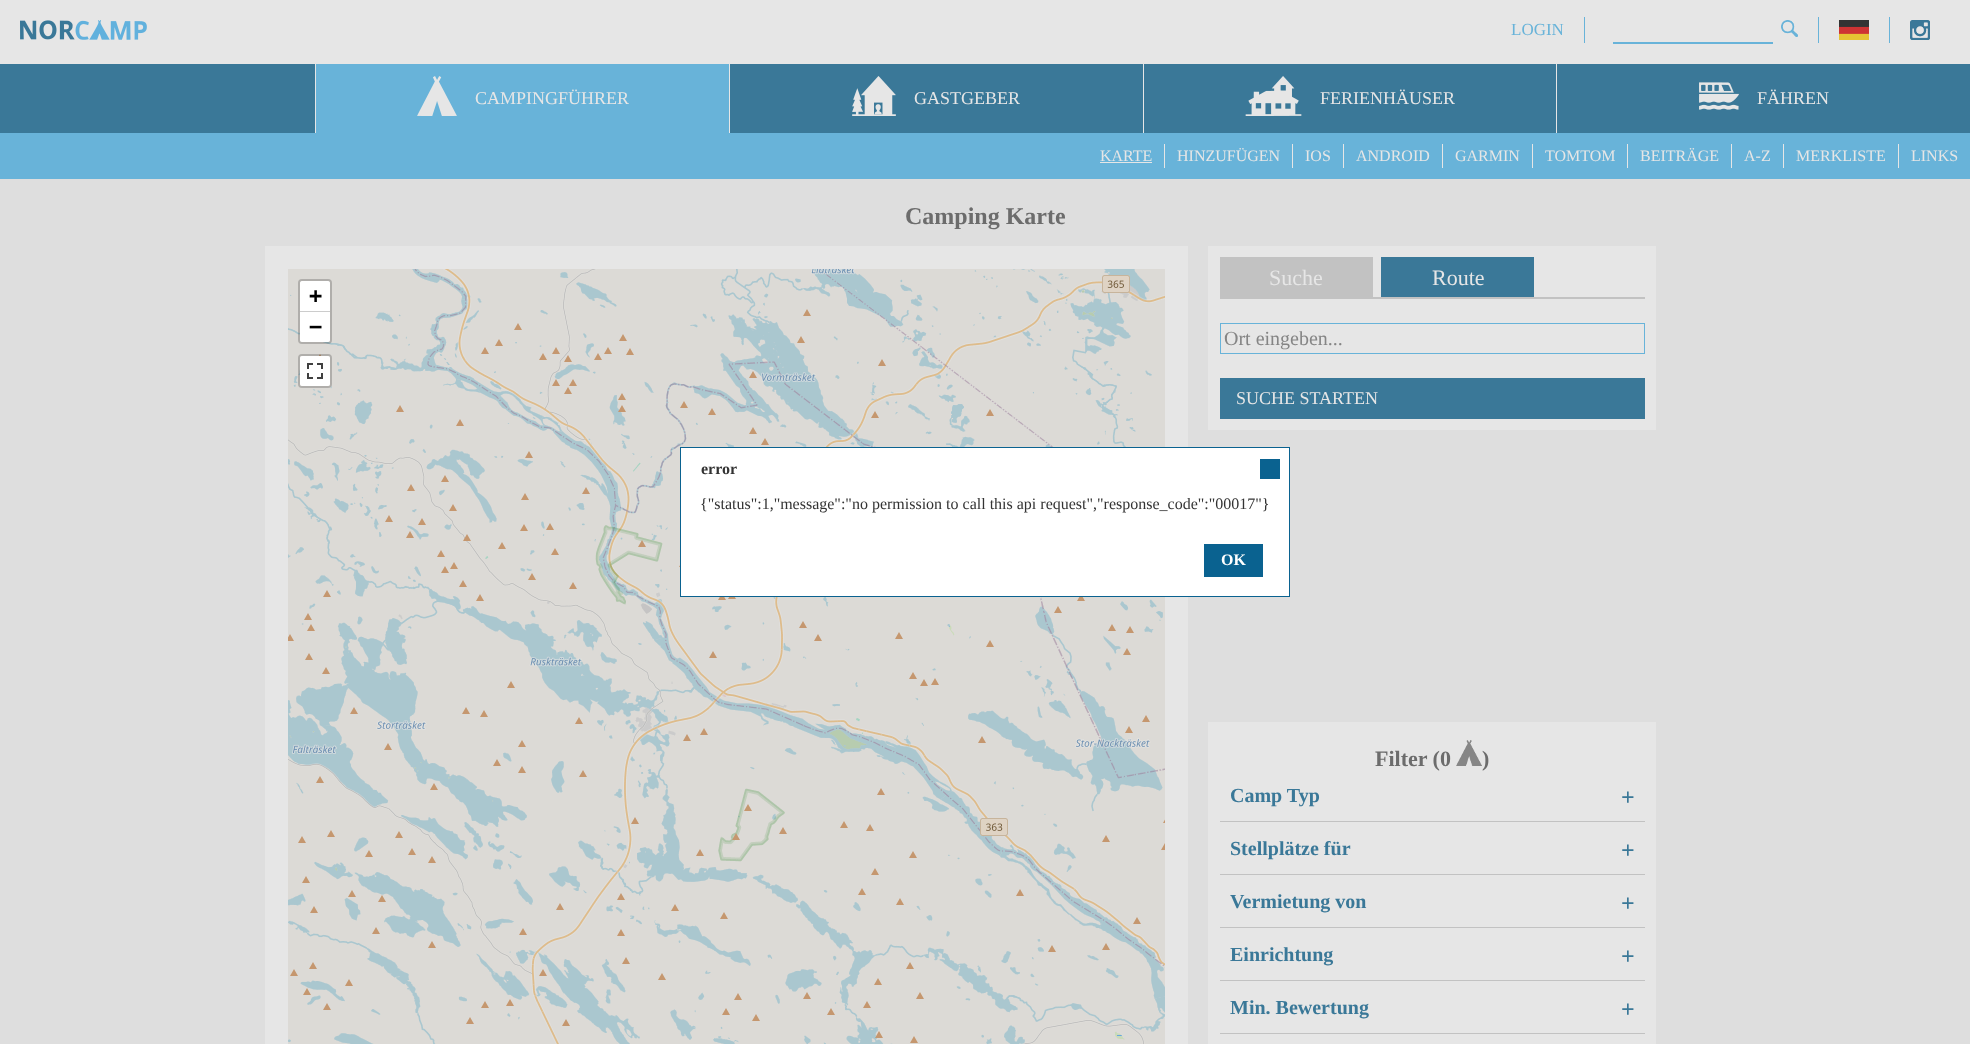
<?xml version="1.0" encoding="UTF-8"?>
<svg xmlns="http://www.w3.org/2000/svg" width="1970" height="1044">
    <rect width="100%" height="100%" fill="#DEDEDE"/>
    <rect x="0" y="0" width="1970" height="64" fill="#E6E6E6"/>
    <image x="20" y="20" width="127" height="20" href="img_01.png"/>
    <text x="1511" y="35" font-family="Liberation Serif" font-size="17" fill="#68B3D9">LOGIN</text>
    <rect x="1584" y="17" width="1" height="26" fill="#68B3D9"/>
    <image x="1781" y="20" width="17" height="17" href="img_02.png"/>
    <rect x="1613" y="42" width="160" height="2" fill="#68B3D9"/>
    <rect x="1818" y="17" width="1" height="26" fill="#68B3D9"/>
    <image x="1839" y="20" width="30" height="20" href="img_03.png"/>
    <rect x="1889" y="17" width="1" height="26" fill="#68B3D9"/>
    <image x="1910" y="20" width="20" height="20" href="img_04.png"/>
    <rect x="0" y="64" width="315" height="69" fill="#3A7898"/>
    <rect x="316" y="64" width="413" height="69" fill="#68B3D9"/>
    <rect x="315" y="64" width="1" height="69" fill="#E6E6E6"/>
    <image x="417" y="76" width="40" height="40" href="img_05.png"/>
    <text x="475" y="104" font-family="Liberation Serif" font-size="18" fill="#E6E6E6">CAMPINGFÜHRER</text>
    <rect x="730" y="64" width="413" height="69" fill="#3A7898"/>
    <rect x="729" y="64" width="1" height="69" fill="#E6E6E6"/>
    <image x="852" y="76" width="44" height="40" href="img_06.png"/>
    <text x="914" y="104" font-family="Liberation Serif" font-size="18" fill="#E6E6E6">GASTGEBER</text>
    <rect x="1144" y="64" width="412" height="69" fill="#3A7898"/>
    <rect x="1143" y="64" width="1" height="69" fill="#E6E6E6"/>
    <image x="1245" y="76" width="57" height="40" href="img_07.png"/>
    <text x="1320" y="104" font-family="Liberation Serif" font-size="18" fill="#E6E6E6">FERIENHÄUSER</text>
    <rect x="1557" y="64" width="413" height="69" fill="#3A7898"/>
    <rect x="1556" y="64" width="1" height="69" fill="#E6E6E6"/>
    <image x="1699" y="82" width="40" height="28" href="img_08.png"/>
    <text x="1757" y="104" font-family="Liberation Serif" font-size="18" fill="#E6E6E6">FÄHREN</text>
    <rect x="0" y="133" width="1970" height="46" fill="#68B3D9"/>
    <text x="1100" y="161" font-family="Liberation Serif" font-size="16" fill="#E6E6E6">KARTE</text>
    <rect x="1100" y="162" width="52" height="1" fill="#E6E6E6"/>
    <rect x="1164" y="144" width="1" height="24" fill="#E6E6E6"/>
    <text x="1177" y="161" font-family="Liberation Serif" font-size="16" fill="#E6E6E6">HINZUFÜGEN</text>
    <rect x="1292" y="144" width="1" height="24" fill="#E6E6E6"/>
    <text x="1305" y="161" font-family="Liberation Serif" font-size="16" fill="#E6E6E6">IOS</text>
    <rect x="1343" y="144" width="1" height="24" fill="#E6E6E6"/>
    <text x="1356" y="161" font-family="Liberation Serif" font-size="16" fill="#E6E6E6">ANDROID</text>
    <rect x="1442" y="144" width="1" height="24" fill="#E6E6E6"/>
    <text x="1455" y="161" font-family="Liberation Serif" font-size="16" fill="#E6E6E6">GARMIN</text>
    <rect x="1532" y="144" width="1" height="24" fill="#E6E6E6"/>
    <text x="1545" y="161" font-family="Liberation Serif" font-size="16" fill="#E6E6E6">TOMTOM</text>
    <rect x="1627" y="144" width="1" height="24" fill="#E6E6E6"/>
    <text x="1640" y="161" font-family="Liberation Serif" font-size="16" fill="#E6E6E6">BEITRÄGE</text>
    <rect x="1731" y="144" width="1" height="24" fill="#E6E6E6"/>
    <text x="1744" y="161" font-family="Liberation Serif" font-size="16" fill="#E6E6E6">A-Z</text>
    <rect x="1783" y="144" width="1" height="24" fill="#E6E6E6"/>
    <text x="1796" y="161" font-family="Liberation Serif" font-size="16" fill="#E6E6E6">MERKLISTE</text>
    <rect x="1898" y="144" width="1" height="24" fill="#E6E6E6"/>
    <text x="1911" y="161" font-family="Liberation Serif" font-size="16" fill="#E6E6E6">LINKS</text>
    <text x="905" y="224" font-family="Liberation Serif" font-size="24" font-weight="700" fill="#6C6C6C">Camping Karte</text>
    <rect x="265" y="246" width="923" height="798" fill="#E6E6E6"/>
    <image x="288" y="269" width="193" height="87" href="img_09.png"/>
    <image x="481" y="269" width="256" height="87" href="img_10.png"/>
    <image x="737" y="269" width="256" height="87" href="img_11.png"/>
    <image x="993" y="269" width="172" height="87" href="img_12.png"/>
    <image x="288" y="356" width="193" height="256" href="img_13.png"/>
    <image x="481" y="356" width="256" height="256" href="img_14.png"/>
    <image x="737" y="356" width="256" height="256" href="img_15.png"/>
    <image x="993" y="356" width="172" height="256" href="img_16.png"/>
    <image x="288" y="612" width="193" height="256" href="img_17.png"/>
    <image x="481" y="612" width="256" height="256" href="img_18.png"/>
    <image x="737" y="612" width="256" height="256" href="img_19.png"/>
    <image x="993" y="612" width="172" height="256" href="img_20.png"/>
    <image x="288" y="868" width="193" height="176" href="img_21.png"/>
    <image x="481" y="868" width="256" height="176" href="img_22.png"/>
    <image x="737" y="868" width="256" height="176" href="img_23.png"/>
    <image x="993" y="868" width="172" height="176" href="img_24.png"/>
    <rect x="299" y="280" width="32" height="63" rx="3" fill="none" stroke="#000000" stroke-opacity="0.2" stroke-width="2"/>
    <path d="M 302 281 H 328 C 329 281 330 282 330 283 V 312 H 300 V 283 C 300 282 301 281 302 281 Z" fill="#FFFFFF"/>
    <rect x="300" y="311" width="30" height="1" fill="#CCCCCC"/>
    <text x="309" y="303" font-family="DejaVu Sans Mono" font-size="22" font-weight="700" fill="#000000">+</text>
    <path d="M 300 312 H 330 V 340 C 330 341 329 342 328 342 H 302 C 301 342 300 341 300 340 Z" fill="#FFFFFF"/>
    <text x="309" y="334" font-family="DejaVu Sans Mono" font-size="22" font-weight="700" fill="#000000">−</text>
    <rect x="299" y="355" width="32" height="32" rx="3" fill="none" stroke="#000000" stroke-opacity="0.2" stroke-width="2"/>
    <rect x="300" y="356" width="30" height="30" rx="2" fill="#FFFFFF"/>
    <image x="307" y="363" width="16" height="16" href="img_25.png"/>
    <rect x="1208" y="246" width="448" height="184" fill="#E6E6E6"/>
    <rect x="1222" y="259" width="149" height="40" fill="#C2C2C2"/>
    <rect x="1220" y="257" width="153" height="2" fill="#C2C2C2"/>
    <rect x="1371" y="257" width="2" height="42" fill="#C2C2C2"/>
    <rect x="1220" y="257" width="2" height="42" fill="#C2C2C2"/>
    <text x="1269" y="285" font-family="Liberation Serif" font-size="22" fill="#E6E6E6">Suche</text>
    <rect x="1381" y="257" width="153" height="40" fill="#3A7898"/>
    <text x="1432" y="285" font-family="Liberation Serif" font-size="22" fill="#E6E6E6">Route</text>
    <rect x="1373" y="297" width="272" height="2" fill="#C2C2C2"/>
    <rect x="1220.5" y="323.5" width="424" height="30" fill="none" stroke="#68B3D9"/>
    <text x="1224" y="345" font-family="Liberation Serif" font-size="20" fill="#858585">Ort eingeben...</text>
    <rect x="1220" y="378" width="425" height="41" fill="#3A7898"/>
    <text x="1236" y="404" font-family="Liberation Serif" font-size="18" fill="#E6E6E6">SUCHE STARTEN</text>
    <rect x="1208" y="722" width="448" height="322" fill="#E6E6E6"/>
    <text x="1375" y="766" font-family="Liberation Serif" font-size="22" font-weight="700" fill="#6C6C6C">Filter (0</text>
    <image x="1456" y="740" width="26" height="26" href="img_26.png"/>
    <text x="1482" y="766" font-family="Liberation Serif" font-size="22" font-weight="700" fill="#6C6C6C">)</text>
    <rect x="1220" y="821" width="425" height="1" fill="#C2C2C2"/>
    <text x="1230" y="802" font-family="Liberation Serif" font-size="20" font-weight="700" fill="#3A7898">Camp Typ</text>
    <text x="1621" y="805" font-family="Liberation Serif" font-size="24" font-weight="700" fill="#3A7898">+</text>
    <rect x="1220" y="874" width="425" height="1" fill="#C2C2C2"/>
    <text x="1230" y="855" font-family="Liberation Serif" font-size="20" font-weight="700" fill="#3A7898">Stellplätze für</text>
    <text x="1621" y="858" font-family="Liberation Serif" font-size="24" font-weight="700" fill="#3A7898">+</text>
    <rect x="1220" y="927" width="425" height="1" fill="#C2C2C2"/>
    <text x="1230" y="908" font-family="Liberation Serif" font-size="20" font-weight="700" fill="#3A7898">Vermietung von</text>
    <text x="1621" y="911" font-family="Liberation Serif" font-size="24" font-weight="700" fill="#3A7898">+</text>
    <rect x="1220" y="980" width="425" height="1" fill="#C2C2C2"/>
    <text x="1230" y="961" font-family="Liberation Serif" font-size="20" font-weight="700" fill="#3A7898">Einrichtung</text>
    <text x="1621" y="964" font-family="Liberation Serif" font-size="24" font-weight="700" fill="#3A7898">+</text>
    <rect x="1220" y="1033" width="425" height="1" fill="#C2C2C2"/>
    <text x="1230" y="1014" font-family="Liberation Serif" font-size="20" font-weight="700" fill="#3A7898">Min. Bewertung</text>
    <text x="1621" y="1017" font-family="Liberation Serif" font-size="24" font-weight="700" fill="#3A7898">+</text>
    <rect x="680.5" y="447.5" width="609" height="149" fill="#FFFFFF" stroke="#0A6290"/>
    <text x="701" y="474" font-family="Liberation Serif" font-size="16" font-weight="700" fill="#333333">error</text>
    <rect x="1260" y="459" width="20" height="20" fill="#0A6290"/>
    <text x="700" y="509" font-family="Liberation Serif" font-size="16" fill="#333333">{"status":1,"message":"no permission to call this api request","response_code":"00017"}</text>
    <rect x="1204" y="544" width="59" height="33" fill="#0A6290"/>
    <text x="1221" y="565" font-family="Liberation Serif" font-size="16" font-weight="700" fill="#FFFFFF">OK</text>
</svg>
